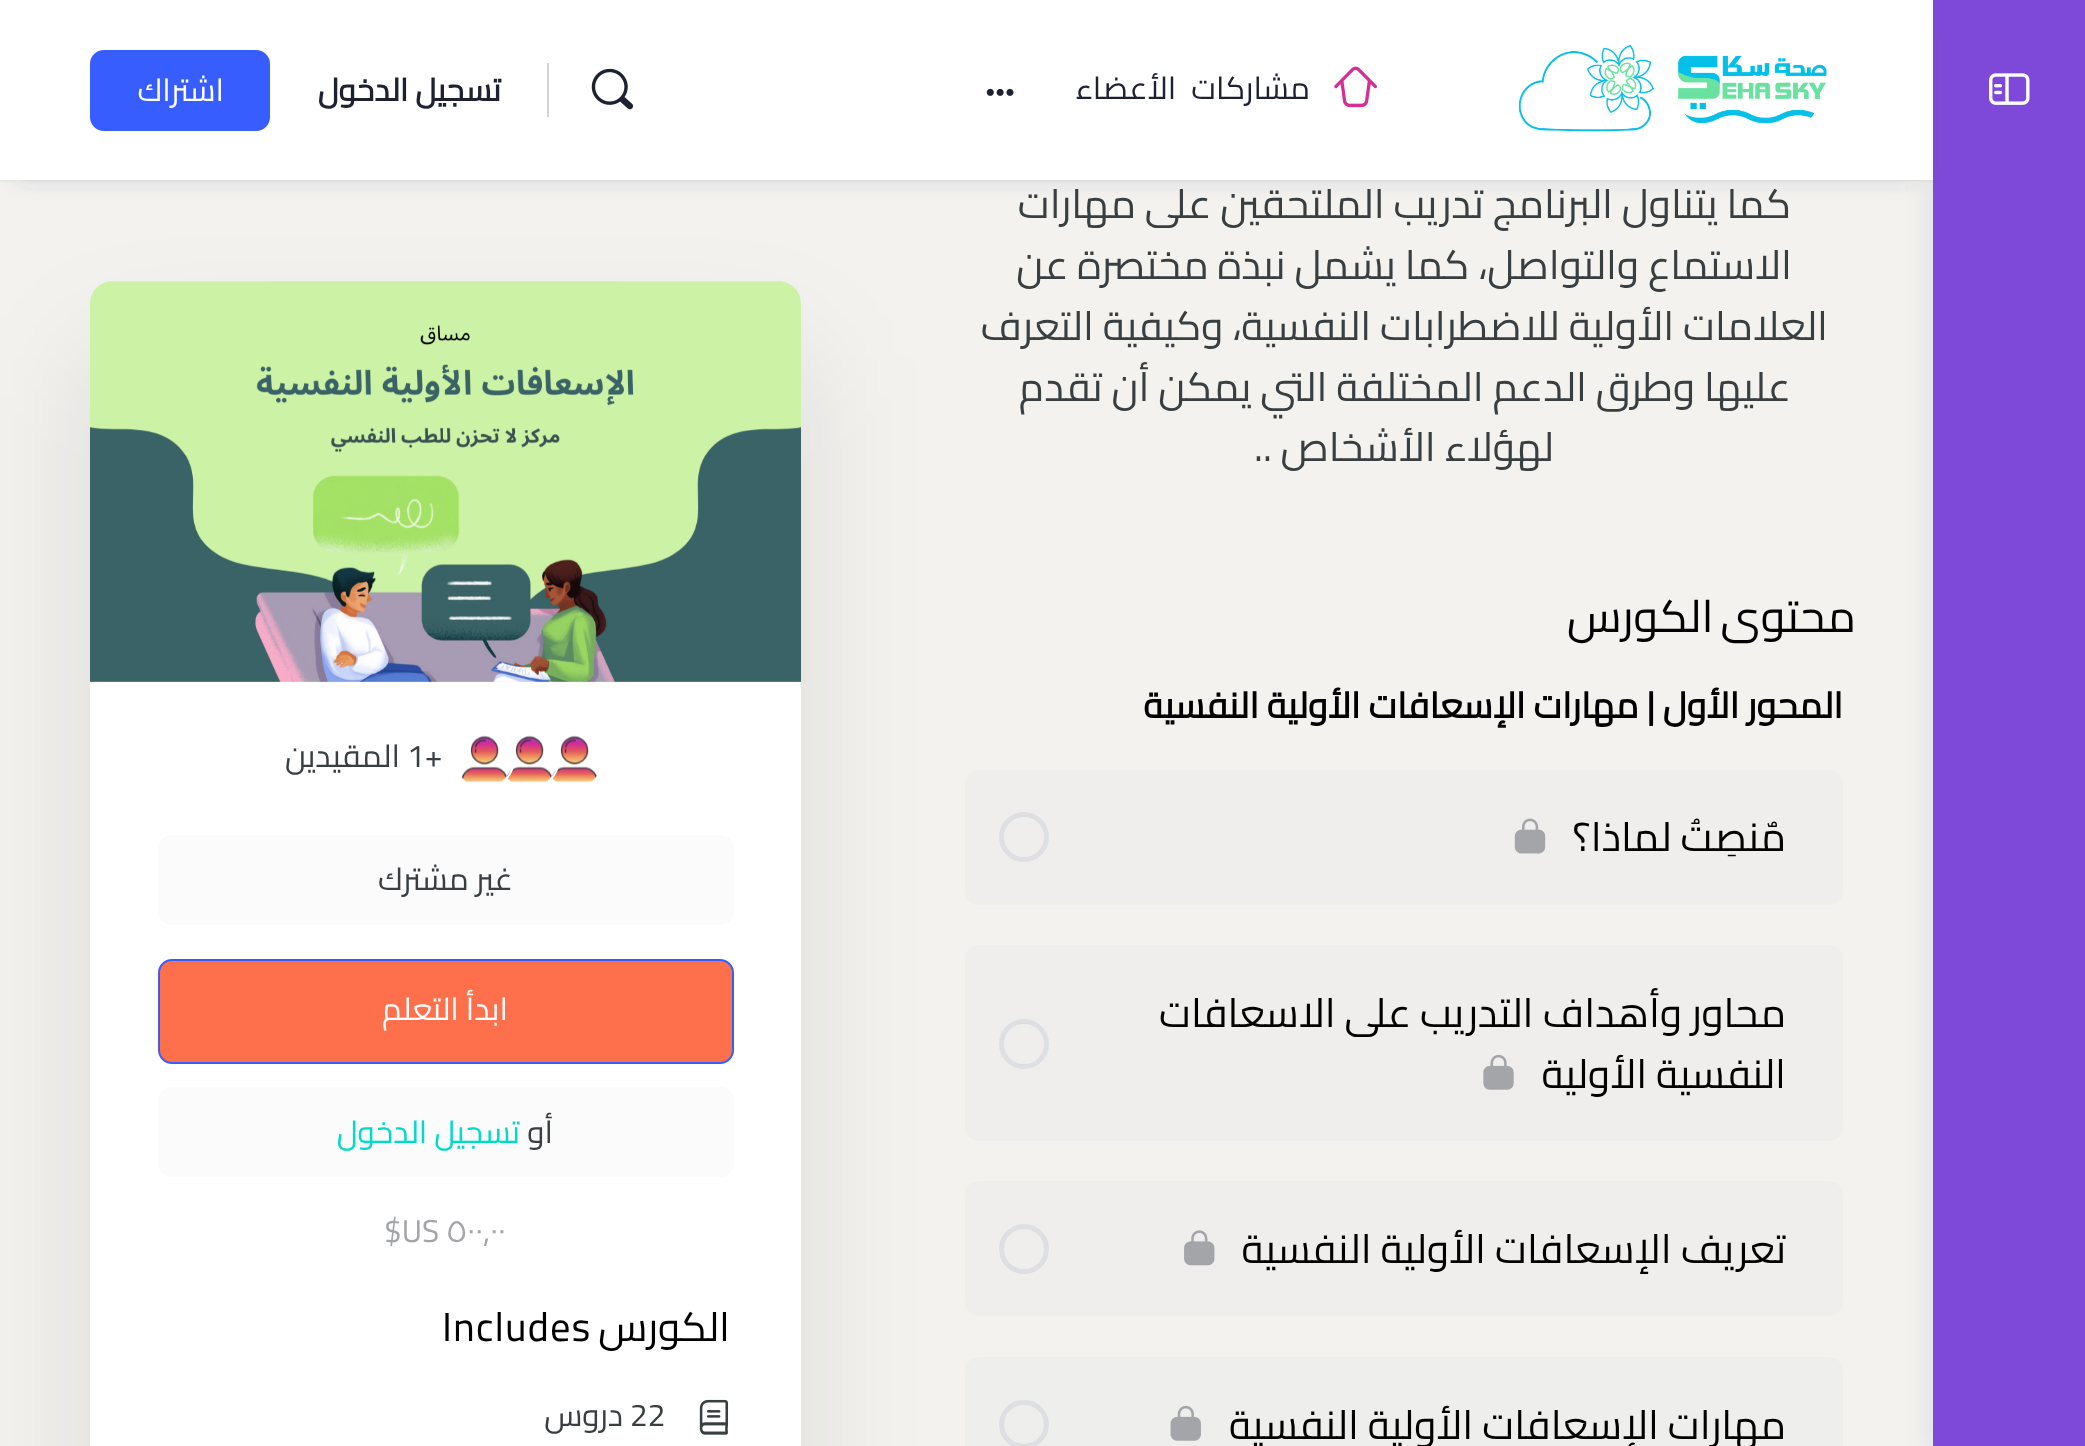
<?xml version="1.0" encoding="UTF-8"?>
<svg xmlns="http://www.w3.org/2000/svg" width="2085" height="1446">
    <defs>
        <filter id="blur1" x="-50%" y="-200%" width="200%" height="500%"><feGaussianBlur stdDeviation="14.5"/></filter>
        <filter id="blur2" x="-50%" y="-200%" width="200%" height="500%"><feGaussianBlur stdDeviation="11"/></filter>
        <filter id="blur3" x="-50%" y="-200%" width="200%" height="500%"><feGaussianBlur stdDeviation="61"/></filter>
    </defs>
    <rect width="100%" height="100%" fill="#F3F2EF"/>
    <rect x="1933" y="7" width="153" height="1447" fill="#122B46" fill-opacity="0.1" filter="url(#blur1)"/>
    <rect x="1933" y="0" width="152" height="1446" fill="#7E49D8"/>
    <image x="1989" y="73" width="41" height="32" href="img_01.png"/>
    <rect x="16" y="27" width="1901" height="149" fill="#41476C" fill-opacity="0.25" filter="url(#blur2)"/>
    <rect x="965" y="770" width="878" height="135" rx="14" fill="#EFEEED"/>
    <rect x="965" y="945" width="878" height="196" rx="14" fill="#EFEEED"/>
    <rect x="965" y="1181" width="878" height="135" rx="14" fill="#EFEEED"/>
    <rect x="965" y="1357" width="878" height="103" rx="14" fill="#EEEEEC"/>
    <rect x="90" y="353" width="711" height="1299" rx="23" fill="#000000" fill-opacity="0.1" filter="url(#blur3)"/>
    <path d="M 0 180 V 182 H 1933 V 2 V 180 Z" fill="#8B8D9D" fill-opacity="0.05"/>
    <rect x="0" y="0" width="1933" height="180" fill="#FFFFFF"/>
    <image x="1518" y="44" width="309" height="88" href="img_02.png"/>
    <image x="1334" y="66" width="43" height="42" href="img_03.png"/>
    <text x="1310" y="99" word-spacing="8" font-family="Cairo" font-size="31.5" letter-spacing="-0.5" direction="rtl" fill="#1E2132">مشاركات الأعضاء</text>
    <image x="986" y="88" width="28" height="8" href="img_04.png"/>
    <image x="591" y="68" width="43" height="42" href="img_05.png"/>
    <rect x="547" y="63" width="2" height="54" fill="#D2D3D6"/>
    <text x="501" y="101" font-family="Cairo" font-size="31.5" font-weight="700" direction="rtl" fill="#1E2132">تسجيل الدخول</text>
    <rect x="91" y="51" width="178" height="79" rx="13" fill="#385DFF" stroke="#385DFF" stroke-width="2"/>
    <text x="224" y="101" font-family="Cairo" font-size="31.5" direction="rtl" fill="#FFFFFF">اشتراك</text>
    <text x="1791" y="218" font-family="Cairo" font-size="40.5" direction="rtl" fill="#393E41">كما يتناول البرنامج تدريب الملتحقين على مهارات</text>
    <text x="1792" y="279" font-family="Cairo" font-size="40.5" direction="rtl" fill="#393E41">الاستماع والتواصل، كما يشمل نبذة مختصرة عن</text>
    <text x="1828" y="340" font-family="Cairo" font-size="40.5" direction="rtl" fill="#393E41">العلامات الأولية للاضطرابات النفسية، وكيفية التعرف</text>
    <text x="1791" y="401" font-family="Cairo" font-size="40.5" direction="rtl" fill="#393E41">عليها وطرق الدعم المختلفة التي يمكن أن تقدم</text>
    <text x="1554" y="461" font-family="Cairo" font-size="40.5" direction="rtl" fill="#393E41">لهؤلاء الأشخاص ..</text>
    <text x="1856" y="632" word-spacing="-3" font-family="Cairo" font-size="45" letter-spacing="1.4" direction="rtl" fill="#000000">محتوى الكورس</text>
    <text x="1843" y="718" font-family="Cairo" font-size="36" font-weight="700" direction="rtl" fill="#000000">المحور الأول | مهارات الإسعافات الأولية النفسية</text>
    <text x="1786" y="851" font-family="Cairo" font-size="40.5" direction="rtl" fill="#000000">مٌنصِتُ لماذا؟</text>
    <image x="1514" y="818" width="32" height="36" href="img_06.png"/>
    <circle cx="1024" cy="837" r="22.5" fill="none" stroke="#DEDFE2" stroke-width="5"/>
    <text font-family="Cairo" font-size="40.5" direction="rtl" fill="#000000">
        <tspan x="1786" y="1027">محاور وأهداف التدريب على الاسعافات</tspan>
        <tspan x="1786" y="1088">النفسية الأولية</tspan>
    </text>
    <image x="1483" y="1054" width="31" height="36" href="img_07.png"/>
    <circle cx="1024" cy="1044" r="22.5" fill="none" stroke="#DEDFE2" stroke-width="5"/>
    <text x="1786" y="1263" font-family="Cairo" font-size="40.5" direction="rtl" fill="#000000">تعريف الإسعافات الأولية النفسية</text>
    <image x="1184" y="1230" width="31" height="36" href="img_08.png"/>
    <circle cx="1024" cy="1249" r="22.5" fill="none" stroke="#DEDFE2" stroke-width="5"/>
    <text x="1786" y="1439" font-family="Cairo" font-size="40.5" direction="rtl" fill="#000000">مهارات الإسعافات الأولية النفسية</text>
    <image x="1170" y="1405" width="31" height="36" href="img_09.png"/>
    <rect x="1001.5" y="1402.5" width="45" height="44" rx="22" fill="none" stroke="#DEDFE2" stroke-width="5"/>
    <path d="M 113 281 H 778 C 790.5 281 801 291.5 801 304 V 682 H 90 V 304 C 90 291.5 100.5 281 113 281 Z" fill="#E2E9EF"/>
    <image x="90" y="281" width="711" height="401" href="img_10.png"/>
    <rect x="90" y="682" width="711" height="764" fill="#FFFFFF"/>
    <image x="551" y="735" width="46" height="48" href="img_11.png"/>
    <circle cx="528.5" cy="758.5" r="30.5" fill="none" stroke="#FFFFFF" stroke-width="2"/>
    <image x="506" y="735" width="46" height="48" href="img_12.png"/>
    <circle cx="483.5" cy="758.5" r="30.5" fill="none" stroke="#FFFFFF" stroke-width="2"/>
    <image x="461" y="735" width="46" height="48" href="img_12.png"/>
    <text x="407" y="767" font-family="Cairo" font-size="31.5" fill="#393E41">1+</text>
    <text x="400" y="767" font-family="Cairo" font-size="31.5" direction="rtl" fill="#393E41">المقيدين</text>
    <rect x="158" y="835" width="576" height="90" rx="14" fill="#FBFBFC"/>
    <text x="513" y="890" font-family="Cairo" font-size="31.5" direction="rtl" fill="#393E41">غير مشترك</text>
    <rect x="159" y="960" width="574" height="103" rx="13" fill="#FE6F4B" stroke="#385DFF" stroke-width="2"/>
    <text x="508" y="1020" font-family="Cairo" font-size="31.5" direction="rtl" fill="#FFFFFF">ابدأ التعلم</text>
    <rect x="158" y="1087" width="576" height="90" rx="14" fill="#FBFBFC"/>
    <text x="553" y="1143" font-family="Cairo" font-size="31.5" direction="rtl" fill="#393E41">أو</text>
    <text x="520" y="1143" font-family="Cairo" font-size="31.5" direction="rtl" fill="#00DBC9">تسجيل الدخول</text>
    <text x="384" y="1242" font-family="Cairo" font-size="31.5" fill="#A3A5A9">$US ٥٠٠٫٠٠</text>
    <text x="730" y="1341" font-family="Cairo" font-size="40.5" letter-spacing="1" direction="rtl" fill="#000000">الكورس</text>
    <text x="442" y="1341" font-family="Cairo" font-size="40.5" letter-spacing="1" fill="#000000">Includes</text>
    <image x="699" y="1399" width="30" height="36" href="img_13.png"/>
    <text x="630" y="1426" font-family="Cairo" font-size="31.5" fill="#393E41">22</text>
    <text x="623" y="1426" font-family="Cairo" font-size="31.5" direction="rtl" fill="#393E41">دروس</text>
</svg>
